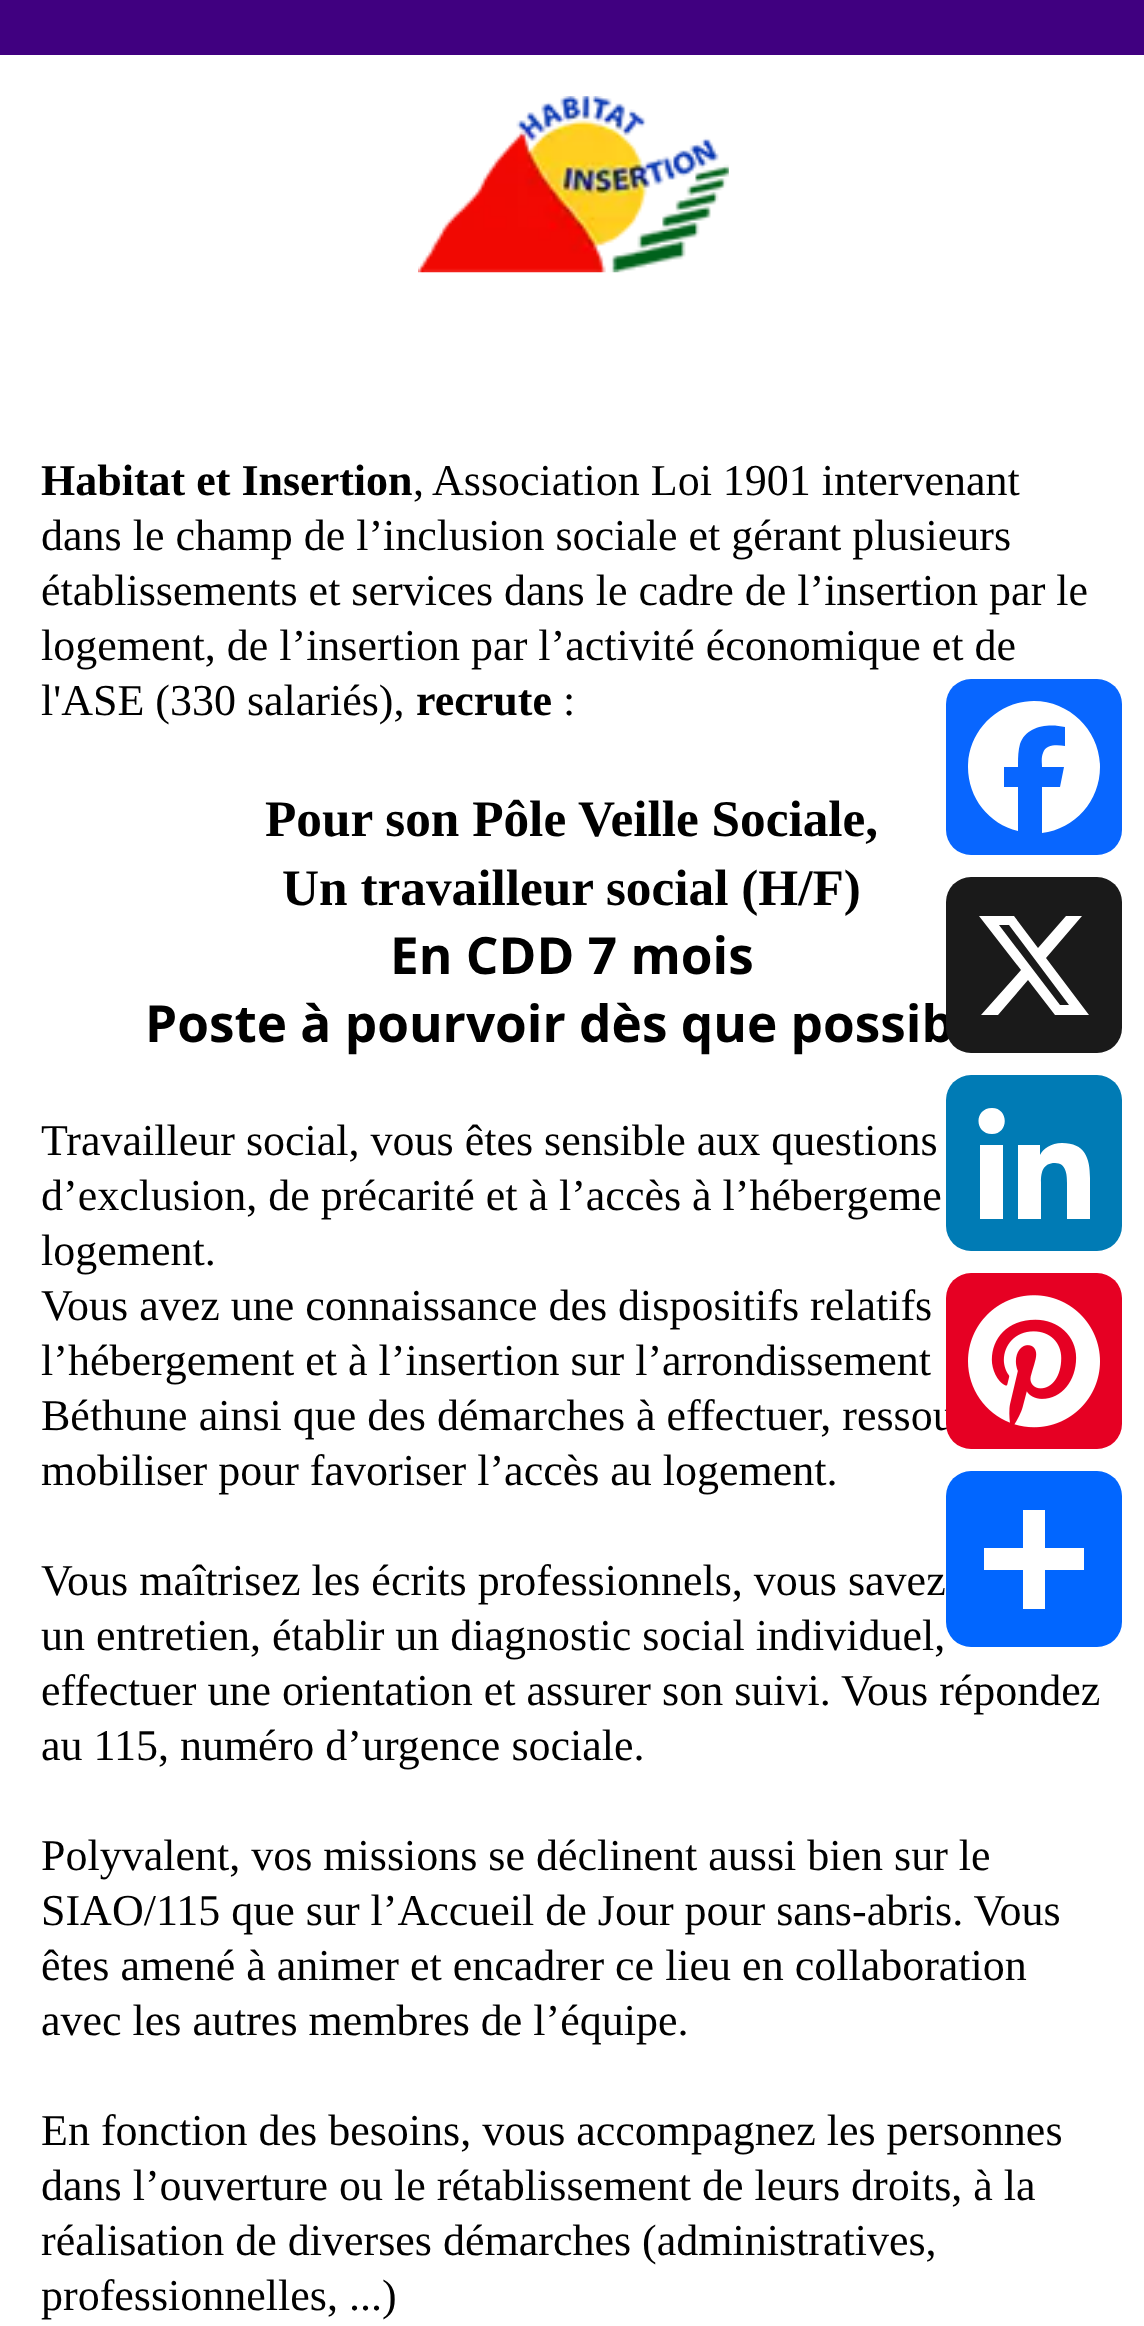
<?xml version="1.0" encoding="UTF-8"?>
<svg xmlns="http://www.w3.org/2000/svg" width="1144" height="2326">
    <rect width="100%" height="100%" fill="#400080"/>
    <rect x="0" y="55" width="1144" height="2271" fill="#FFFFFF"/>
    <image x="418" y="96" width="311" height="177" href="img_01.png"/>
    <text x="41" y="495" font-family="Liberation Serif" font-size="44" font-weight="700" fill="#000000">Habitat et Insertion</text>
    <text x="413" y="495" font-family="Liberation Serif" font-size="44" fill="#000000">,</text>
    <text x="432" y="495" font-family="Liberation Serif" font-size="44" fill="#000000">Association Loi 1901 intervenant</text>
    <text font-family="Liberation Serif" font-size="44" fill="#000000">
        <tspan x="41" y="550">dans le champ de l’inclusion sociale et gérant plusieurs</tspan>
        <tspan x="41" y="605">établissements et services dans le cadre de l’insertion par le</tspan>
        <tspan x="41" y="660">logement, de l’insertion par l’activité économique et de</tspan>
        <tspan x="41" y="715">l'ASE (330 salariés),</tspan>
    </text>
    <text x="416" y="715" font-family="Liberation Serif" font-size="44" font-weight="700" fill="#000000">recrute</text>
    <text x="563" y="715" font-family="Liberation Serif" font-size="44" fill="#000000">:</text>
    <text x="265" y="836" font-family="Liberation Serif" font-size="51.3" font-weight="700" fill="#000000">Pour son Pôle Veille Sociale,</text>
    <text x="282" y="905" font-family="Liberation Serif" font-size="51.3" font-weight="700" fill="#000000">Un travailleur social (H/F)</text>
    <text x="390" y="974" font-family="Open Sans" font-size="51.3" font-weight="700" fill="#000000">En CDD 7 mois</text>
    <text x="145" y="1042" font-family="Open Sans" font-size="51.3" font-weight="700" fill="#000000">Poste à pourvoir dès que possib</text>
    <text font-family="Liberation Serif" font-size="44" fill="#000000">
        <tspan x="41" y="1155">Travailleur social, vous êtes sensible aux questions</tspan>
        <tspan x="41" y="1210">d’exclusion, de précarité et à l’accès à l’hébergeme</tspan>
        <tspan x="41" y="1265">logement.</tspan>
        <tspan x="41" y="1320">Vous avez une connaissance des dispositifs relatifs</tspan>
        <tspan x="41" y="1375">l’hébergement et à l’insertion sur l’arrondissement</tspan>
        <tspan x="41" y="1430">Béthune ainsi que des démarches à effectuer, ressou</tspan>
        <tspan x="41" y="1485">mobiliser pour favoriser l’accès au logement.</tspan>
    </text>
    <text font-family="Liberation Serif" font-size="44" fill="#000000">
        <tspan x="41" y="1595">Vous maîtrisez les écrits professionnels, vous savez</tspan>
        <tspan x="41" y="1650">un entretien, établir un diagnostic social individuel,</tspan>
        <tspan x="41" y="1705">effectuer une orientation et assurer son suivi. Vous répondez</tspan>
        <tspan x="41" y="1760">au 115, numéro d’urgence sociale.</tspan>
    </text>
    <text font-family="Liberation Serif" font-size="44" fill="#000000">
        <tspan x="41" y="1870">Polyvalent, vos missions se déclinent aussi bien sur le</tspan>
        <tspan x="41" y="1925">SIAO/115 que sur l’Accueil de Jour pour sans-abris. Vous</tspan>
        <tspan x="41" y="1980">êtes amené à animer et encadrer ce lieu en collaboration</tspan>
        <tspan x="41" y="2035">avec les autres membres de l’équipe.</tspan>
    </text>
    <text font-family="Liberation Serif" font-size="44" fill="#000000">
        <tspan x="41" y="2145">En fonction des besoins, vous accompagnez les personnes</tspan>
        <tspan x="41" y="2200">dans l’ouverture ou le rétablissement de leurs droits, à la</tspan>
        <tspan x="41" y="2255">réalisation de diverses démarches (administratives,</tspan>
        <tspan x="41" y="2310">professionnelles, ...)</tspan>
    </text>
    <rect x="946" y="679" width="176" height="176" rx="25" fill="#0866FF"/>
    <path d="M 1100 767 C 1100 731 1070 701 1034 701 C 998 701 968 731 968 767 C 968 798 989 824 1018 831 V 787 H 1004 V 767 H 1018 C 1018 759 1018 751 1020 744 C 1026 726 1048 723 1065 727 V 746 C 1057 745 1046 744 1043 753 C 1041 758 1042 763 1042 767 H 1064 L 1060 787 H 1042 V 833 C 1075 829 1100 801 1100 767" fill="#FFFFFF"/>
    <rect x="946" y="877" width="176" height="176" rx="25" fill="#1A1A1A"/>
    <path d="M 1066 916 H 1082 L 1046 958 L 1089 1015 H 1055 L 1028 980 L 998 1015 H 981 L 1021 970 L 979 916 H 1014 L 1038 948 Z M 1060 1005 H 1069 L 1009 925 H 999 Z" fill="#FFFFFF"/>
    <rect x="946" y="1075" width="176" height="176" rx="25" fill="#007BB5"/>
    <path d="M 980 1145 H 1003 V 1219 H 980 Z M 992 1108 C 1009 1108 1009 1134 992 1134 C 974 1134 974 1108 992 1108 M 1018 1145 H 1040 V 1155 C 1043 1149 1051 1143 1062 1143 C 1085 1143 1090 1158 1090 1178 V 1219 H 1067 V 1183 C 1067 1174 1066 1163 1055 1163 C 1043 1163 1041 1172 1041 1182 V 1219 H 1018 Z" fill="#FFFFFF"/>
    <rect x="946" y="1273" width="176" height="176" rx="25" fill="#E60023"/>
    <image x="968" y="1295" width="132" height="133" href="img_02.png"/>
    <rect x="946" y="1471" width="176" height="176" rx="25" fill="#0166FF"/>
    <rect x="1023" y="1510" width="22" height="99" fill="#FFFFFF"/>
    <rect x="984" y="1548" width="100" height="22" fill="#FFFFFF"/>
</svg>
